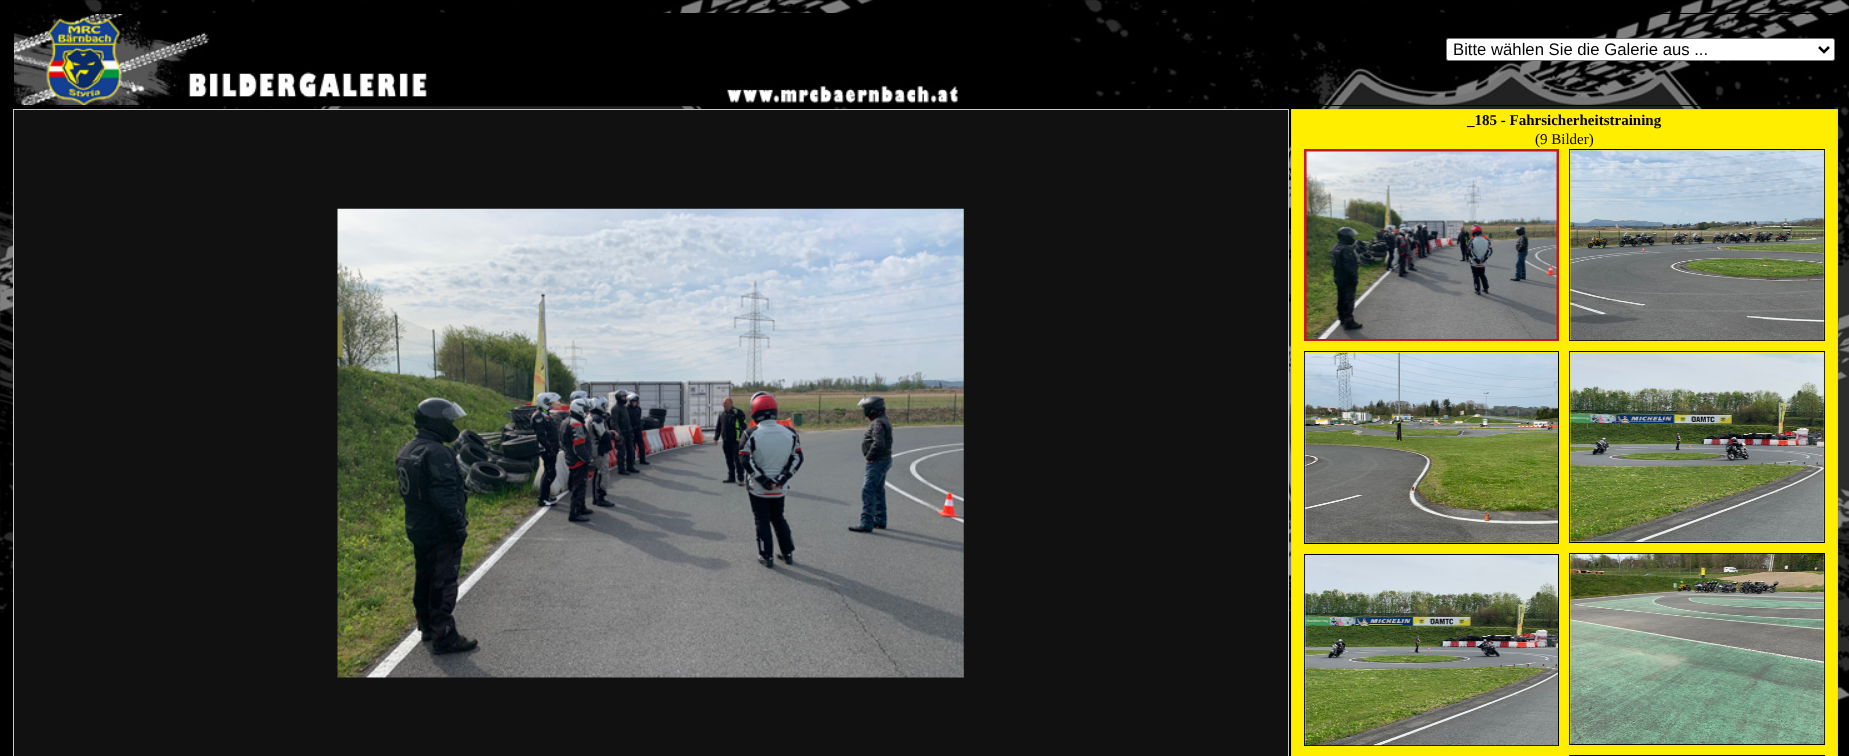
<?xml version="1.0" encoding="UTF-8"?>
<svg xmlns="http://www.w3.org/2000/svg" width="1849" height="756">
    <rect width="100%" height="100%" fill="#FFFFFF"/>
    <image x="0" y="0" width="1849" height="756" href="img_01.png"/>
    <image x="13" y="14" width="945" height="93" href="img_02.png"/>
    <rect x="13.5" y="13.5" width="1824" height="92" fill="none" stroke="#000000"/>
    <rect x="1446.5" y="38.5" width="388" height="22" rx="2" fill="#FFFFFF" stroke="#767676"/>
    <path d="M 1819 47 L 1824 52 L 1829 47" fill="none" stroke="#000000" stroke-width="2.5"/>
    <text x="1453" y="55" font-family="Liberation Sans" font-size="16.7" fill="#000000">Bitte wählen Sie die Galerie aus ...</text>
    <rect x="13.5" y="109.5" width="1275" height="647" fill="#111111" stroke="#CCCCCC"/>
    <image x="337" y="208" width="627" height="470" href="img_03.png"/>
    <rect x="1291.5" y="109.5" width="546" height="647" fill="#FFEE00" stroke="#CCCCCC"/>
    <text x="1467" y="125" font-family="Liberation Serif" font-size="15" font-weight="700" fill="#000000">_185 - Fahrsicherheitstraining</text>
    <text x="1535" y="144" font-family="Liberation Serif" font-size="15" fill="#000000">(9 Bilder)</text>
    <rect x="1305.5" y="150.5" width="252" height="189" fill="none" stroke="#C01818" stroke-width="3"/>
    <image x="1305" y="151" width="252" height="188" href="img_04.png"/>
    <rect x="1304.5" y="351.5" width="254" height="192" fill="none" stroke="#000000"/>
    <image x="1304" y="352" width="254" height="191" href="img_05.png"/>
    <rect x="1304.5" y="554.5" width="254" height="191" fill="none" stroke="#000000"/>
    <image x="1304" y="555" width="254" height="191" href="img_06.png"/>
    <rect x="1569.5" y="149.5" width="255" height="191" fill="none" stroke="#000000"/>
    <image x="1569" y="150" width="256" height="191" href="img_07.png"/>
    <rect x="1569.5" y="351.5" width="255" height="191" fill="none" stroke="#000000"/>
    <image x="1569" y="352" width="256" height="190" href="img_08.png"/>
    <rect x="1569.5" y="553.5" width="255" height="191" fill="none" stroke="#000000"/>
    <image x="1569" y="554" width="256" height="190" href="img_09.png"/>
    <rect x="1569.5" y="755.5" width="255" height="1" fill="none" stroke="#000000"/>
</svg>
